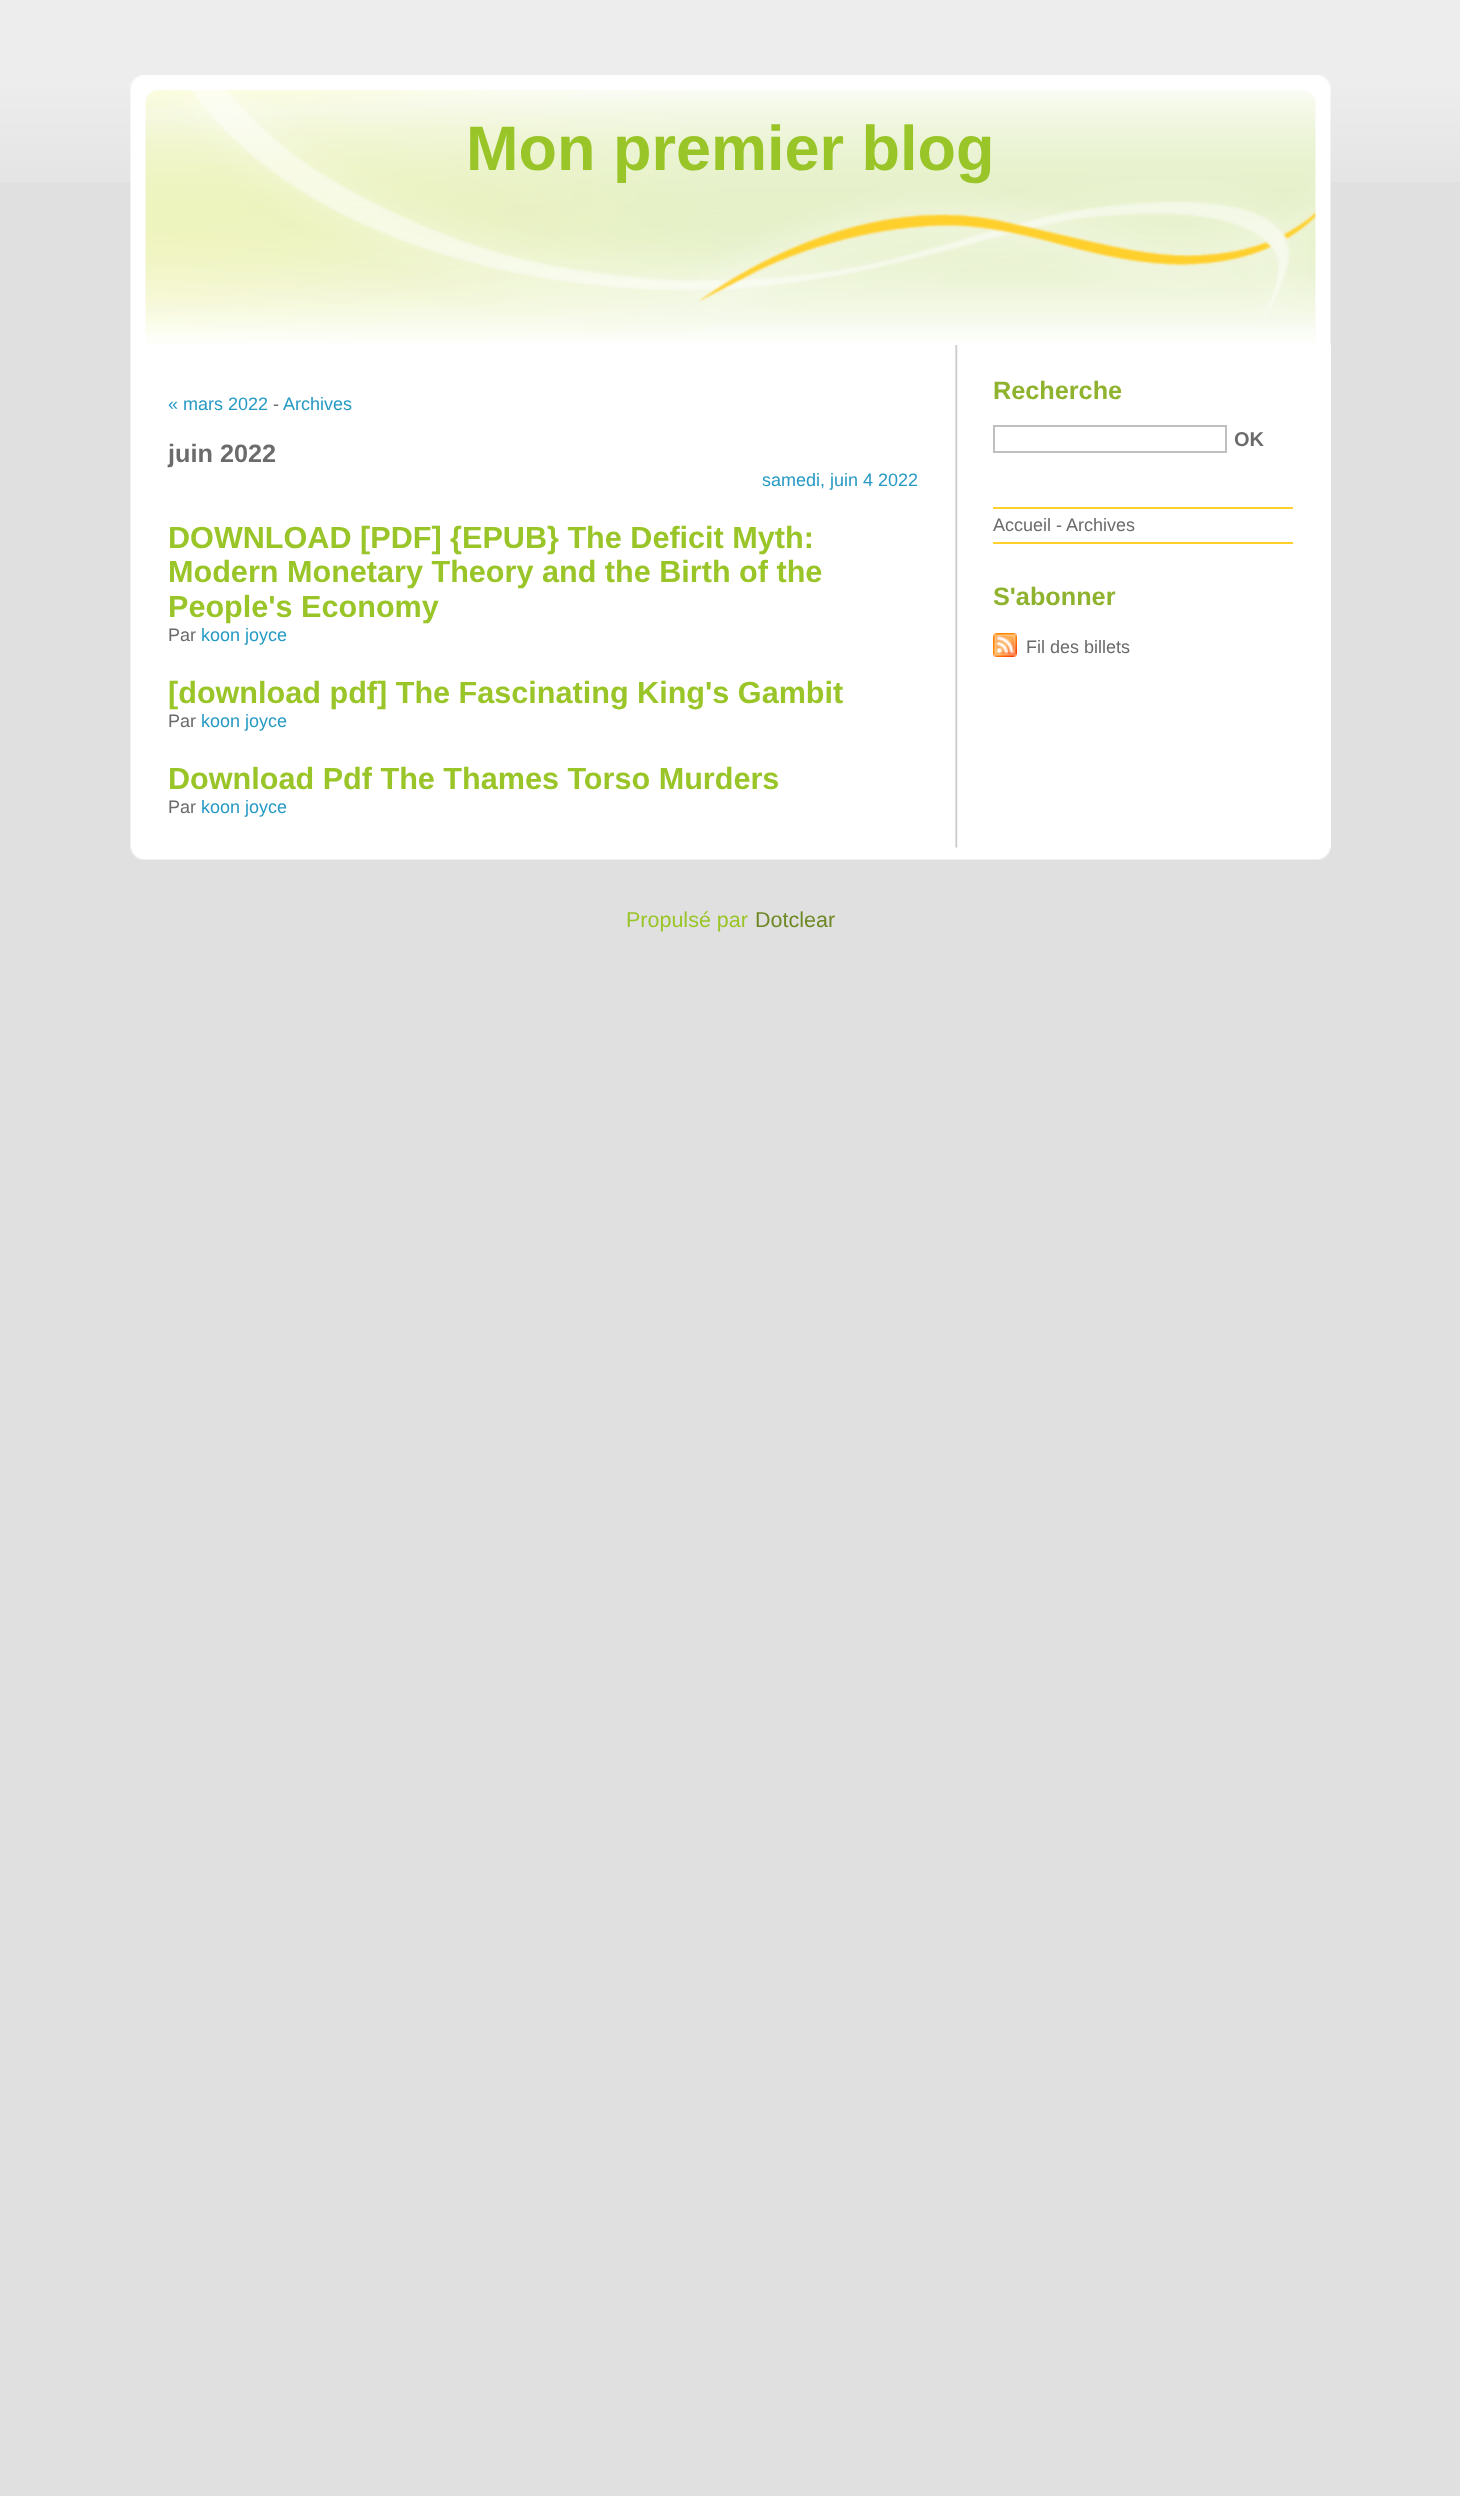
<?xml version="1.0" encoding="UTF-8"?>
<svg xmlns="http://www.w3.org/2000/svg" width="1460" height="2496">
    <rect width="100%" height="100%" fill="#E0E0E0"/>
    <image x="0" y="0" width="1460" height="182" href="img_01.png"/>
    <image x="130" y="75" width="1201" height="270" href="img_02.png"/>
    <text x="466" y="170" font-family="Liberation Sans" font-size="63" font-weight="700" fill="#9AC528">Mon premier blog</text>
    <image x="130" y="847" width="1201" height="13" href="img_05.png"/>
    <rect x="131" y="345" width="1200" height="503" fill="#FFFFFF"/>
    <image x="130" y="345" width="828" height="503" href="img_03.png"/>
    <text x="168" y="410" font-family="Liberation Sans" font-size="18" fill="#279AC4">« mars 2022</text>
    <text x="273" y="410" font-family="Liberation Sans" font-size="18" fill="#6B6B6B">-</text>
    <text x="283" y="410" font-family="Liberation Sans" font-size="18" fill="#279AC4">Archives</text>
    <text x="168" y="462" font-family="Liberation Sans" font-size="25.25" font-weight="700" fill="#6B6B6B">juin 2022</text>
    <text x="762" y="486" font-family="Liberation Sans" font-size="18" fill="#279AC4">samedi, juin 4 2022</text>
    <text font-family="Liberation Sans" font-size="30.6" font-weight="700" fill="#9AC528">
        <tspan x="168" y="548">DOWNLOAD [PDF] {EPUB} The Deficit Myth:</tspan>
        <tspan x="168" y="582">Modern Monetary Theory and the Birth of the</tspan>
        <tspan x="168" y="617">People's Economy</tspan>
    </text>
    <text x="168" y="641" font-family="Liberation Sans" font-size="18" fill="#6B6B6B">Par</text>
    <text x="201" y="641" font-family="Liberation Sans" font-size="18" fill="#279AC4">koon joyce</text>
    <text x="168" y="703" font-family="Liberation Sans" font-size="30.6" font-weight="700" fill="#9AC528">[download pdf] The Fascinating King's Gambit</text>
    <text x="168" y="727" font-family="Liberation Sans" font-size="18" fill="#6B6B6B">Par</text>
    <text x="201" y="727" font-family="Liberation Sans" font-size="18" fill="#279AC4">koon joyce</text>
    <text x="168" y="789" font-family="Liberation Sans" font-size="30.6" font-weight="700" fill="#9AC528">Download Pdf The Thames Torso Murders</text>
    <text x="168" y="813" font-family="Liberation Sans" font-size="18" fill="#6B6B6B">Par</text>
    <text x="201" y="813" font-family="Liberation Sans" font-size="18" fill="#279AC4">koon joyce</text>
    <text x="993" y="399" font-family="Liberation Sans" font-size="25.25" font-weight="700" fill="#8FB22F">Recherche</text>
    <rect x="994" y="426" width="232" height="26" fill="none" stroke="#BFBFBF" stroke-width="2"/>
    <text x="1234" y="446" font-family="Liberation Sans" font-size="20" font-weight="700" fill="#6B6B6B">OK</text>
    <rect x="993" y="507" width="300" height="2" fill="#FFD02C"/>
    <rect x="993" y="542" width="300" height="2" fill="#FFD02C"/>
    <text x="993" y="531" font-family="Liberation Sans" font-size="18" fill="#6B6B6B">Accueil - Archives</text>
    <text x="993" y="605" font-family="Liberation Sans" font-size="25.25" font-weight="700" fill="#8FB22F">S'abonner</text>
    <image x="993" y="633" width="24" height="24" href="img_04.png"/>
    <text x="1026" y="653" font-family="Liberation Sans" font-size="18" fill="#6B6B6B">Fil des billets</text>
    <text x="626" y="927" font-family="Liberation Sans" font-size="21.5" fill="#9AC528">Propulsé par</text>
    <text x="755" y="927" font-family="Liberation Sans" font-size="21.5" fill="#6D8824">Dotclear</text>
</svg>
